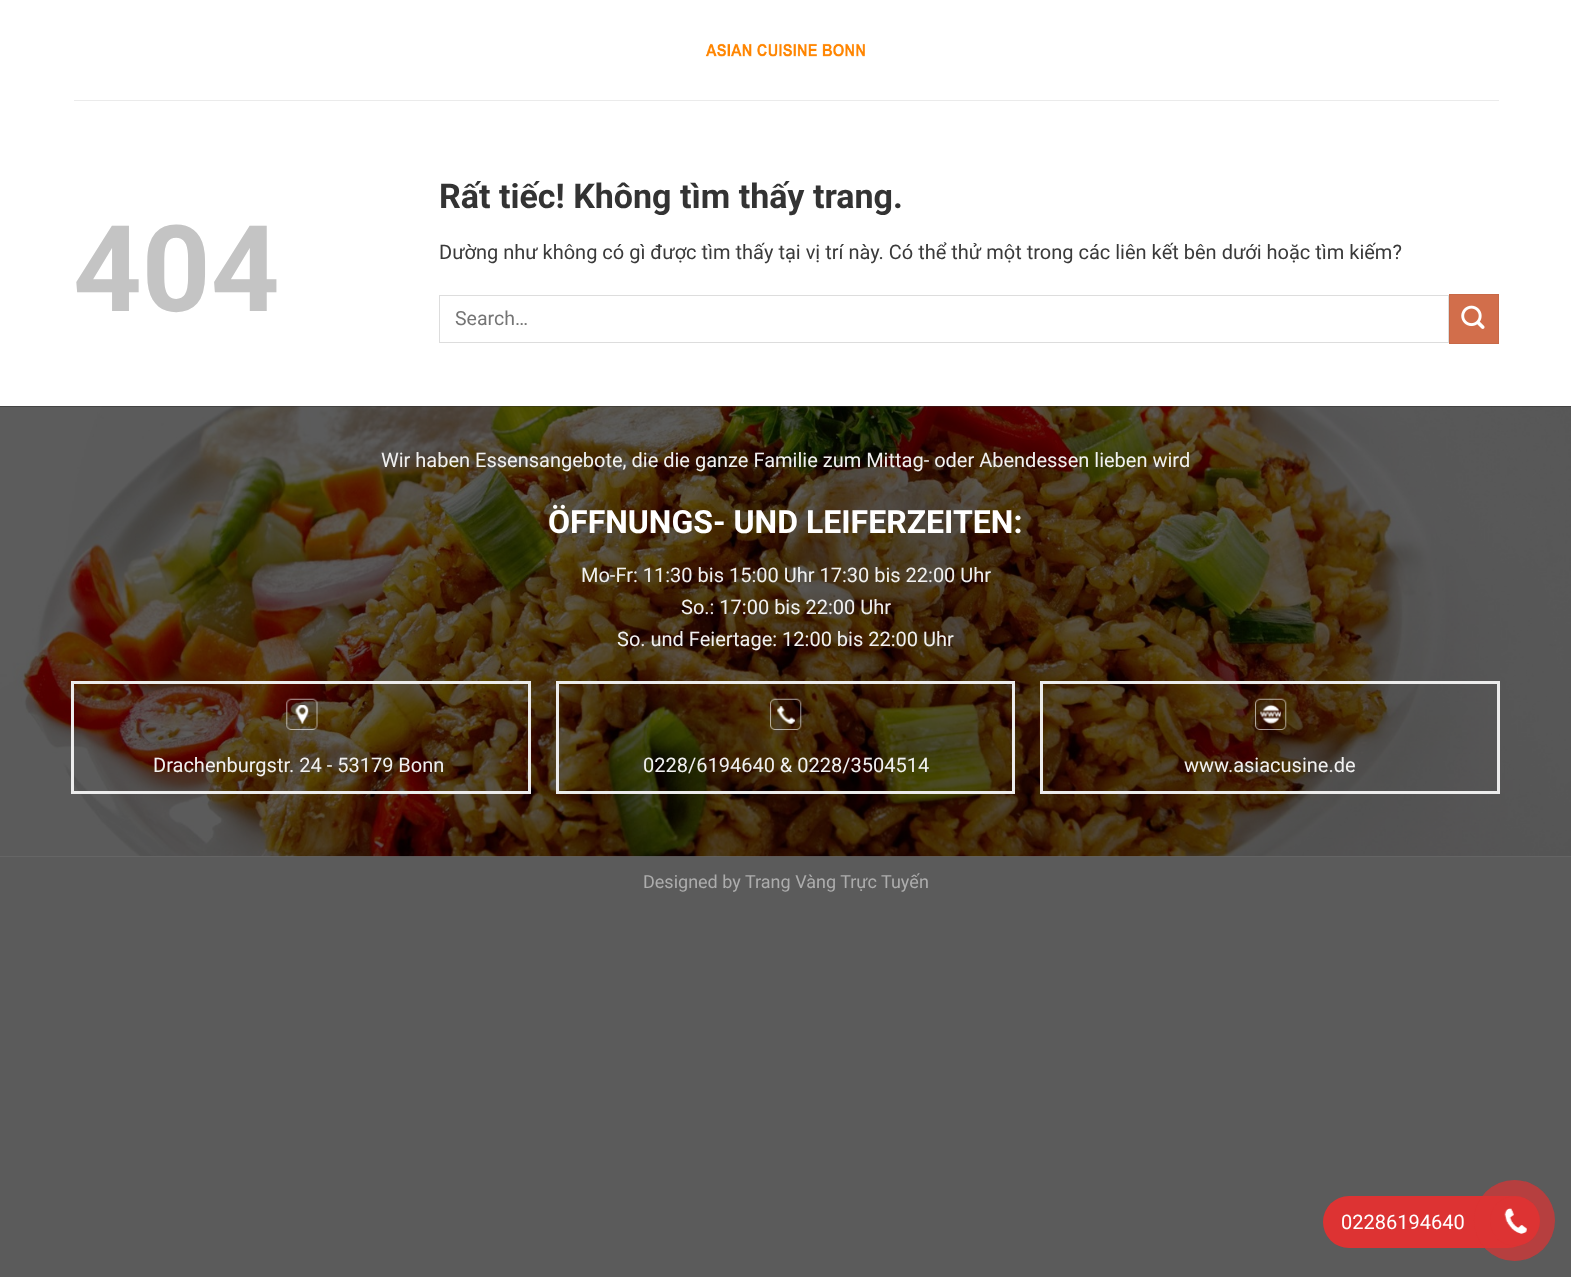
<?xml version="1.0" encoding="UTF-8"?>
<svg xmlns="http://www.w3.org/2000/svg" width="1571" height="1277">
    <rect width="100%" height="100%" fill="#5B5B5B"/>
    <rect x="0" y="0" width="1571" height="406" fill="#FFFFFF"/>
    <image x="705" y="43" width="160" height="14" href="img_01.png"/>
    <rect x="74" y="100" width="1425" height="1" fill="#EBEBEB"/>
    <text x="73" y="311" font-family="Roboto" font-size="120" font-weight="700" fill="#C4C4C4">404</text>
    <text x="439" y="208" font-family="Roboto" font-size="34" font-weight="700" fill="#333333">Rất tiếc! Không tìm thấy trang.</text>
    <text x="439" y="259" font-family="Roboto" font-size="20" fill="#3A3A3A">Dường như không có gì được tìm thấy tại vị trí này. Có thể thử một trong các liên kết bên dưới hoặc tìm kiếm?</text>
    <rect x="439.5" y="295.5" width="1009" height="47" fill="none" stroke="#DDDDDD"/>
    <text x="455" y="325" font-family="Roboto" font-size="19.5" fill="#757575">Search…</text>
    <rect x="1449.5" y="294.5" width="49" height="49" fill="#D26E4B" stroke="#C86947"/>
    <image x="1461" y="305" width="24" height="24" href="img_02.png"/>
    <rect x="0" y="406" width="1571" height="1" fill="#252525"/>
    <image x="0" y="406" width="1571" height="451" href="img_03.png"/>
    <text x="381" y="467" font-family="Roboto" font-size="20" fill="#F1F1F1">Wir haben Essensangebote, die die ganze Familie zum Mittag- oder Abendessen lieben wird</text>
    <text x="548" y="533" font-family="Roboto" font-size="32" font-weight="700" fill="#FFFFFF">ÖFFNUNGS- UND LEIFERZEITEN:</text>
    <text x="581" y="582" font-family="Roboto" font-size="20" fill="#F1F1F1">Mo-Fr: 11:30 bis 15:00 Uhr 17:30 bis 22:00 Uhr</text>
    <text x="681" y="614" font-family="Roboto" font-size="20" fill="#F1F1F1">So.: 17:00 bis 22:00 Uhr</text>
    <text x="617" y="646" font-family="Roboto" font-size="20" fill="#F1F1F1">So. und Feiertage: 12:00 bis 22:00 Uhr</text>
    <rect x="72.5" y="682.5" width="457" height="110" fill="none" stroke="#ECECEC" stroke-width="3"/>
    <image x="286" y="698" width="32" height="32" href="img_04.png"/>
    <text x="153" y="772" font-family="Roboto" font-size="20" fill="#F1F1F1">Drachenburgstr. 24 - 53179 Bonn</text>
    <rect x="557.5" y="682.5" width="456" height="110" fill="none" stroke="#ECECEC" stroke-width="3"/>
    <image x="770" y="698" width="32" height="32" href="img_05.png"/>
    <text x="643" y="772" font-family="Roboto" font-size="20" fill="#F1F1F1">0228/6194640 &amp; 0228/3504514</text>
    <rect x="1041.5" y="682.5" width="457" height="110" fill="none" stroke="#ECECEC" stroke-width="3"/>
    <image x="1255" y="698" width="32" height="32" href="img_06.png"/>
    <text x="1184" y="772" font-family="Roboto" font-size="20" fill="#F1F1F1">www.asiacusine.de</text>
    <text x="643" y="888" font-family="Roboto" font-size="18" fill="#ADADAD">Designed by</text>
    <text x="745" y="888" font-family="Roboto" font-size="18" fill="#ADADAD">Trang Vàng Trực Tuyến</text>
    <rect x="1323" y="1196" width="211" height="52" rx="26" fill="#DD3333"/>
    <text x="1341" y="1229" font-family="Roboto" font-size="20" fill="#FFFFFF">02286194640</text>
    <circle cx="1514.5" cy="1220.5" r="40.5" fill="#DD3333" fill-opacity="0.7"/>
    <circle cx="1515" cy="1221" r="25" fill="#DD3333"/>
    <image x="1504" y="1208" width="23" height="26" href="img_07.png"/>
</svg>
